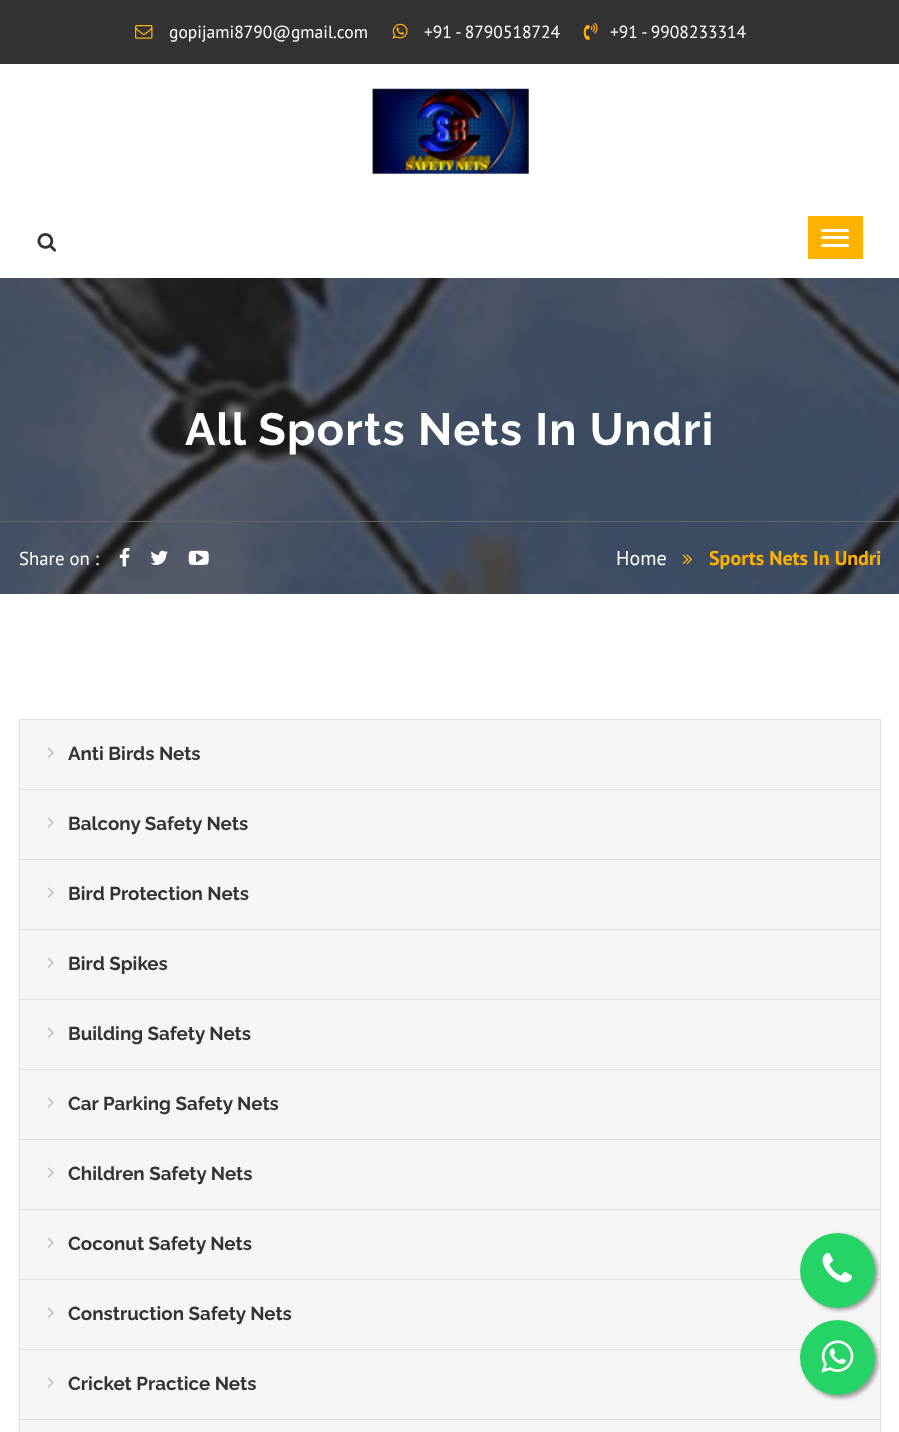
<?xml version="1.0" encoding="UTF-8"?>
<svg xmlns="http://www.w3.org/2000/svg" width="899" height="1432">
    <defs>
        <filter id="blur1" x="-50%" y="-200%" width="200%" height="500%"><feGaussianBlur stdDeviation="2"/></filter>
    </defs>
    <rect width="100%" height="100%" fill="#FFFFFF"/>
    <rect x="0" y="0" width="899" height="64" fill="#333333"/>
    <image x="135" y="25" width="18" height="14" href="img_01.png"/>
    <text x="169" y="38" font-family="PT Sans" font-size="17.5" fill="#FFFFFF">gopijami8790@gmail.com</text>
    <image x="392" y="23" width="16" height="16" href="img_02.png"/>
    <text x="424" y="38" font-family="PT Sans" font-size="17.5" fill="#FFFFFF">+91 - 8790518724</text>
    <image x="583" y="22" width="15" height="18" href="img_03.png"/>
    <text x="610" y="38" font-family="PT Sans" font-size="17.5" fill="#FFFFFF">+91 - 9908233314</text>
    <image x="372" y="88" width="157" height="86" href="img_04.png"/>
    <image x="37" y="233" width="20" height="19" href="img_05.png"/>
    <rect x="808" y="216" width="55" height="43" fill="#FFB200"/>
    <rect x="821" y="229" width="28" height="3" rx="1.5" fill="#FFFFFF"/>
    <rect x="821" y="236" width="28" height="3" rx="1.5" fill="#FFFFFF"/>
    <rect x="821" y="244" width="28" height="3" rx="1.5" fill="#FFFFFF"/>
    <image x="0" y="278" width="899" height="316" href="img_06.png"/>
    <text x="185" y="445" font-family="Raleway" font-size="45" font-weight="700" letter-spacing="1.25" fill="#FFFFFF">All Sports Nets In Undri</text>
    <rect x="0" y="521" width="899" height="1" fill="#666666"/>
    <text x="19" y="565" font-family="PT Sans" font-size="18.75" fill="#FFFFFF">Share on :</text>
    <image x="119" y="547" width="11" height="20" href="img_07.png"/>
    <image x="150" y="550" width="18" height="15" href="img_08.png"/>
    <image x="188" y="550" width="21" height="15" href="img_09.png"/>
    <text x="616" y="565" font-family="PT Sans" font-size="20" fill="#FFFFFF">Home</text>
    <image x="682" y="554" width="10" height="11" href="img_10.png"/>
    <text x="709" y="565" font-family="PT Sans" font-size="20" font-weight="700" fill="#FFB200">Sports Nets In Undri</text>
    <rect x="19.5" y="719.5" width="861" height="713" fill="none" stroke="#E1E1E1"/>
    <rect x="20" y="720" width="860" height="69" fill="#F6F6F6"/>
    <rect x="20" y="789" width="860" height="1" fill="#E1E1E1"/>
    <image x="47" y="747" width="7" height="11" href="img_11.png"/>
    <text x="68" y="760" font-family="Raleway" font-size="18.75" font-weight="700" fill="#333333">Anti Birds Nets</text>
    <rect x="20" y="790" width="860" height="69" fill="#F6F6F6"/>
    <rect x="20" y="859" width="860" height="1" fill="#E1E1E1"/>
    <image x="47" y="817" width="7" height="11" href="img_11.png"/>
    <text x="68" y="830" font-family="Raleway" font-size="18.75" font-weight="700" fill="#333333">Balcony Safety Nets</text>
    <rect x="20" y="860" width="860" height="69" fill="#F6F6F6"/>
    <rect x="20" y="929" width="860" height="1" fill="#E1E1E1"/>
    <image x="47" y="887" width="7" height="11" href="img_11.png"/>
    <text x="68" y="900" font-family="Raleway" font-size="18.75" font-weight="700" fill="#333333">Bird Protection Nets</text>
    <rect x="20" y="930" width="860" height="69" fill="#F6F6F6"/>
    <rect x="20" y="999" width="860" height="1" fill="#E1E1E1"/>
    <image x="47" y="957" width="7" height="11" href="img_11.png"/>
    <text x="68" y="970" font-family="Raleway" font-size="18.75" font-weight="700" fill="#333333">Bird Spikes</text>
    <rect x="20" y="1000" width="860" height="69" fill="#F6F6F6"/>
    <rect x="20" y="1069" width="860" height="1" fill="#E1E1E1"/>
    <image x="47" y="1027" width="7" height="11" href="img_11.png"/>
    <text x="68" y="1040" font-family="Raleway" font-size="18.75" font-weight="700" fill="#333333">Building Safety Nets</text>
    <rect x="20" y="1070" width="860" height="69" fill="#F6F6F6"/>
    <rect x="20" y="1139" width="860" height="1" fill="#E1E1E1"/>
    <image x="47" y="1097" width="7" height="11" href="img_11.png"/>
    <text x="68" y="1110" font-family="Raleway" font-size="18.75" font-weight="700" fill="#333333">Car Parking Safety Nets</text>
    <rect x="20" y="1140" width="860" height="69" fill="#F6F6F6"/>
    <rect x="20" y="1209" width="860" height="1" fill="#E1E1E1"/>
    <image x="47" y="1167" width="7" height="11" href="img_11.png"/>
    <text x="68" y="1180" font-family="Raleway" font-size="18.75" font-weight="700" fill="#333333">Children Safety Nets</text>
    <rect x="20" y="1210" width="860" height="69" fill="#F6F6F6"/>
    <rect x="20" y="1279" width="860" height="1" fill="#E1E1E1"/>
    <image x="47" y="1237" width="7" height="11" href="img_11.png"/>
    <text x="68" y="1250" font-family="Raleway" font-size="18.75" font-weight="700" fill="#333333">Coconut Safety Nets</text>
    <rect x="20" y="1280" width="860" height="69" fill="#F6F6F6"/>
    <rect x="20" y="1349" width="860" height="1" fill="#E1E1E1"/>
    <image x="47" y="1307" width="7" height="11" href="img_11.png"/>
    <text x="68" y="1320" font-family="Raleway" font-size="18.75" font-weight="700" fill="#333333">Construction Safety Nets</text>
    <rect x="20" y="1350" width="860" height="69" fill="#F6F6F6"/>
    <rect x="20" y="1419" width="860" height="1" fill="#E1E1E1"/>
    <image x="47" y="1377" width="7" height="11" href="img_11.png"/>
    <text x="68" y="1390" font-family="Raleway" font-size="18.75" font-weight="700" fill="#333333">Cricket Practice Nets</text>
    <rect x="20" y="1420" width="860" height="12" fill="#F6F6F6"/>
    <rect x="803" y="1235" width="75" height="75" rx="37.5" fill="#999999" filter="url(#blur1)"/>
    <circle cx="837.5" cy="1270.5" r="37.5" fill="#25D366"/>
    <image x="822" y="1253" width="30" height="30" href="img_12.png"/>
    <rect x="803" y="1323" width="75" height="75" rx="37.5" fill="#999999" filter="url(#blur1)"/>
    <circle cx="837.5" cy="1357.5" r="37.5" fill="#25D366"/>
    <image x="821" y="1340" width="33" height="33" href="img_13.png"/>
</svg>
